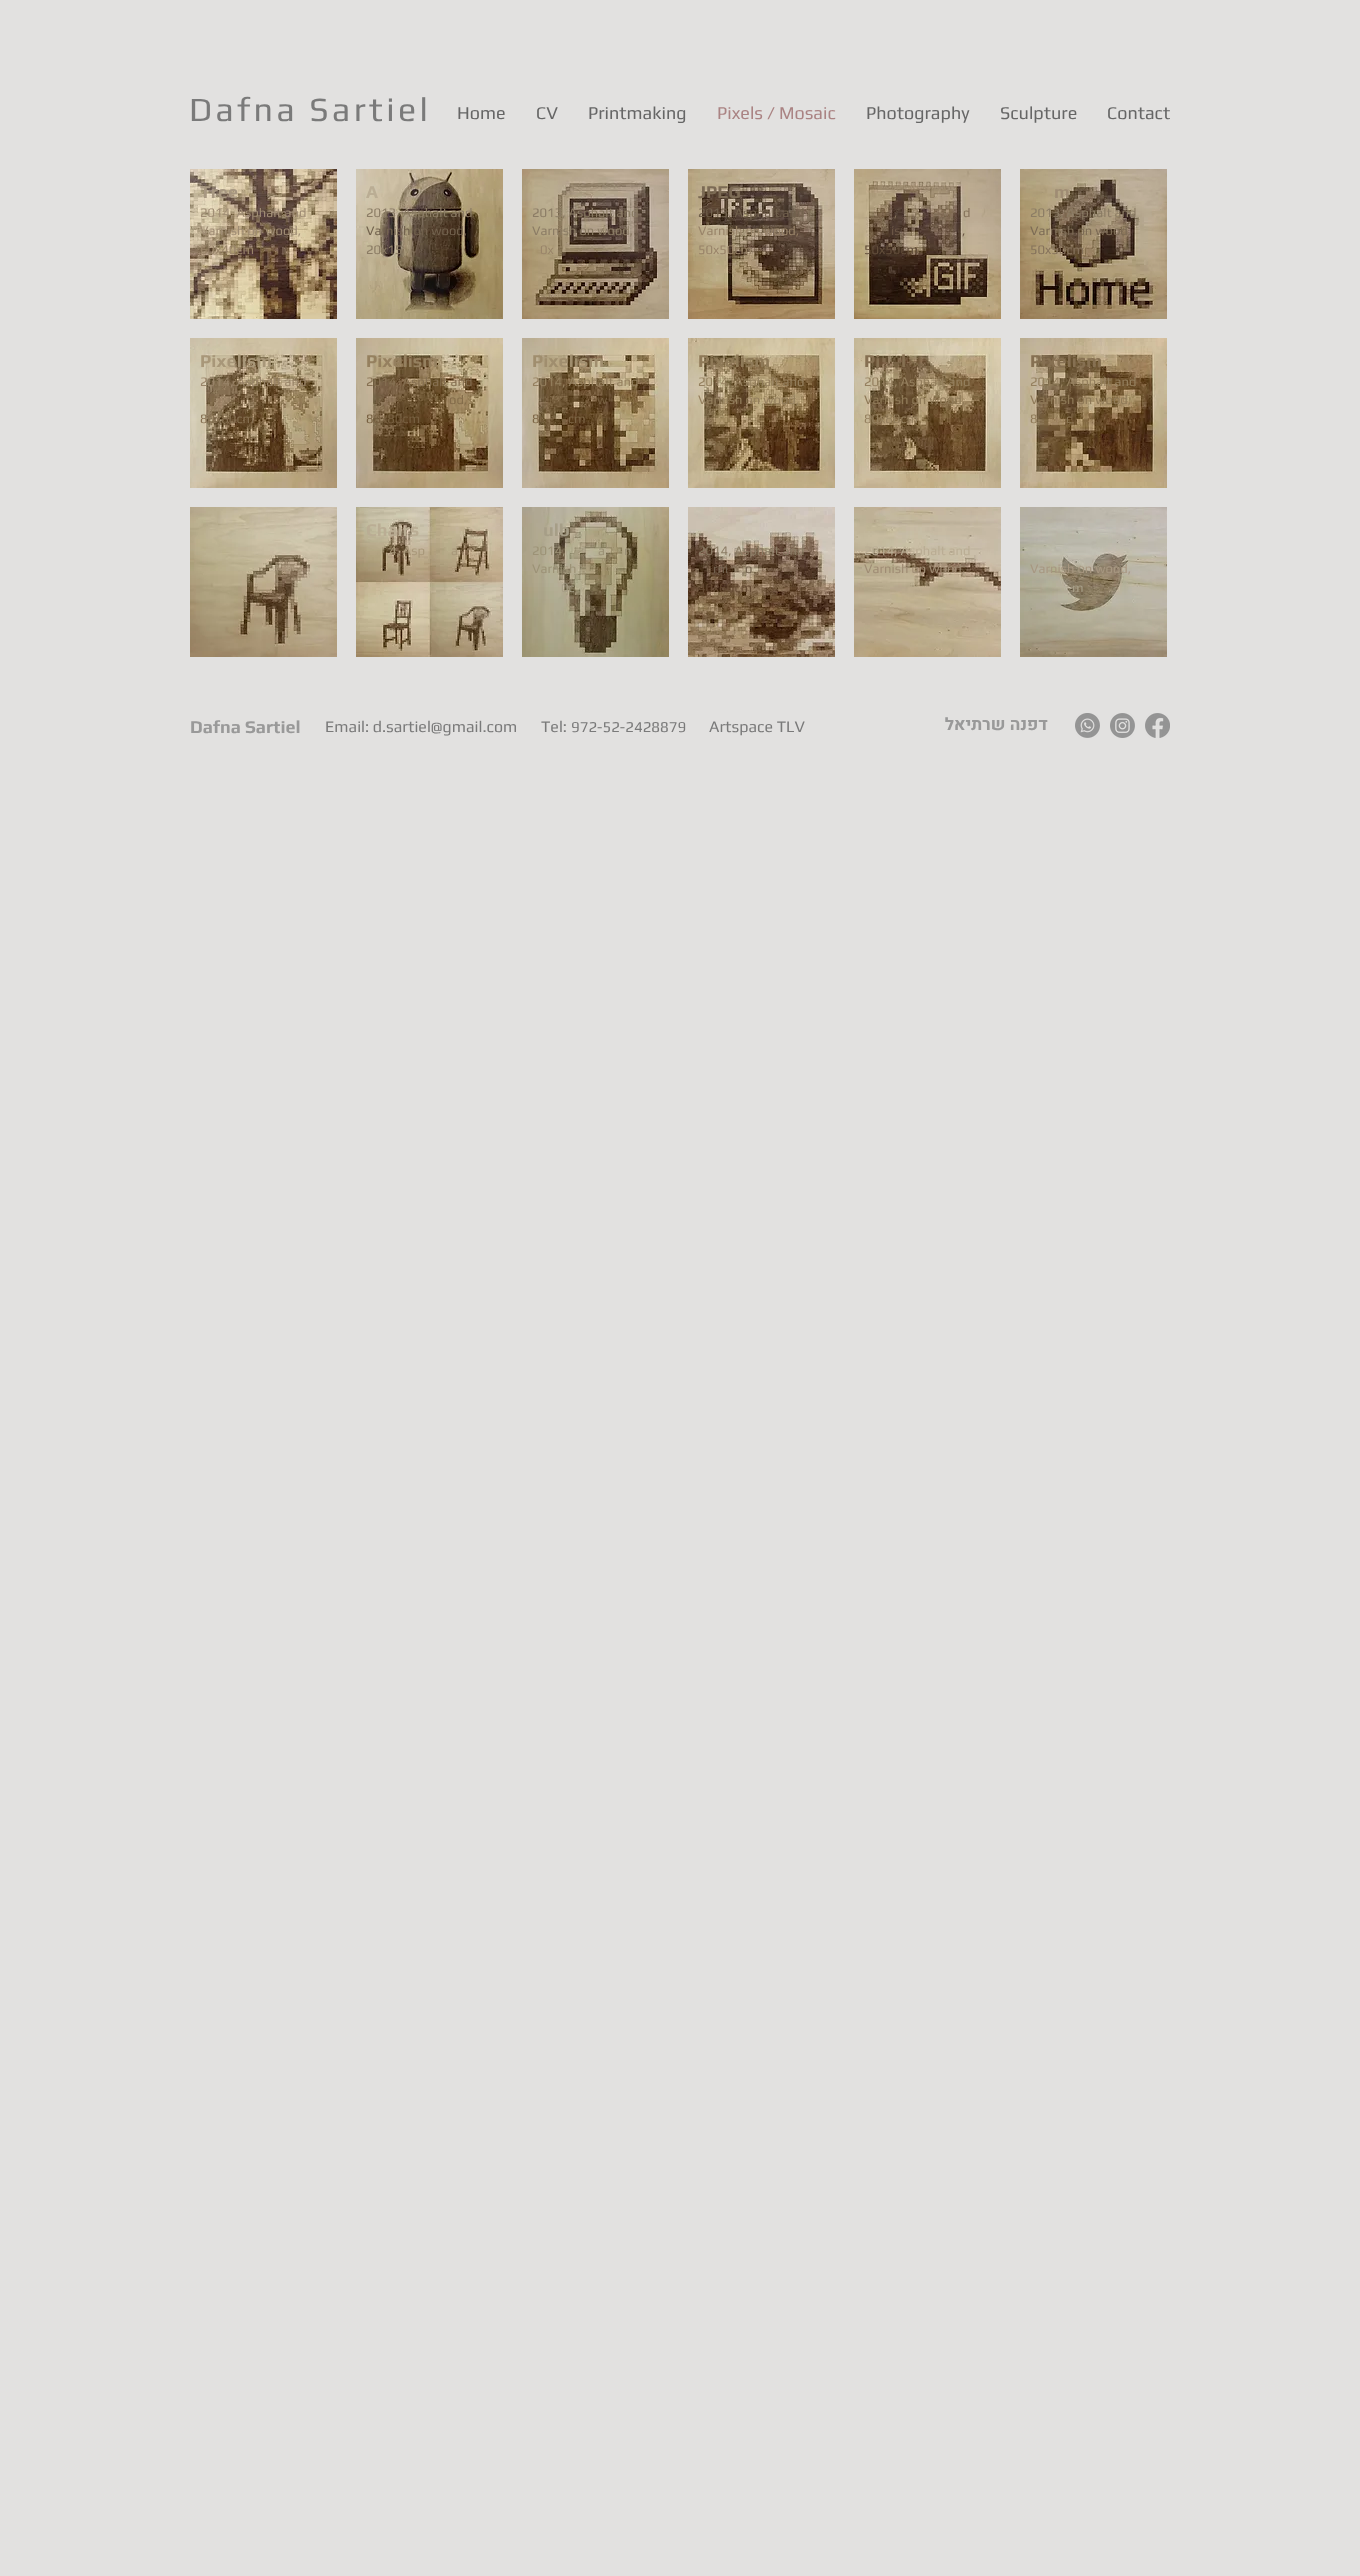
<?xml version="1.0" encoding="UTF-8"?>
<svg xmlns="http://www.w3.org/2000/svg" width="1360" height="2576">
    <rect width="100%" height="100%" fill="#E2E1E0"/>
    <text x="189" y="121" font-family="Play" font-size="34" letter-spacing="3.4" fill="#7A7A7A">Dafna Sartiel</text>
    <text x="457" y="119" font-family="Play" font-size="18" fill="#666666">Home</text>
    <text x="536" y="119" font-family="Play" font-size="18" fill="#666666">CV</text>
    <text x="588" y="119" font-family="Play" font-size="18" fill="#666666">Printmaking</text>
    <text x="717" y="119" font-family="Play" font-size="18" fill="#AA8383">Pixels / Mosaic</text>
    <text x="866" y="119" font-family="Play" font-size="18" fill="#666666">Photography</text>
    <text x="1000" y="119" font-family="Play" font-size="18" fill="#666666">Sculpture</text>
    <text x="1107" y="119" font-family="Play" font-size="18" fill="#666666">Contact</text>
    <image x="190" y="169" width="147" height="150" href="img_01.png"/>
    <text x="200" y="198" font-family="Play" font-size="18" font-weight="700" fill="#A79781">Tree</text>
    <text font-family="Play" font-size="13" fill="#9F8C74">
        <tspan x="200" y="217">2014, Asphalt and</tspan>
        <tspan x="200" y="235">Varnish on wood,</tspan>
    </text>
    <text x="200" y="254" font-family="Play" font-size="13" fill="#998469">60x40cm</text>
    <image x="356" y="169" width="147" height="150" href="img_02.png"/>
    <text x="366" y="198" font-family="Play" font-size="18" font-weight="700" fill="#BAAD94">A</text>
    <text x="366" y="217" font-family="Play" font-size="13" fill="#8B7C65">2013, Asphalt and</text>
    <text x="366" y="235" font-family="Play" font-size="13" fill="#72624E">Varnish on wood,</text>
    <text x="366" y="254" font-family="Play" font-size="13" fill="#8B7C65">20x15</text>
    <image x="522" y="169" width="147" height="150" href="img_03.png"/>
    <text font-family="Play" font-size="13" fill="#8B7C65">
        <tspan x="532" y="217">2013, Asphalt and</tspan>
        <tspan x="532" y="235">Varnish on wood,</tspan>
    </text>
    <text x="540" y="254" font-family="Play" font-size="13" fill="#998469">0x</text>
    <image x="688" y="169" width="147" height="150" href="img_04.png"/>
    <text x="698" y="198" font-family="Play" font-size="18" font-weight="700" fill="#7C6B55">JPEG</text>
    <text x="698" y="217" font-family="Play" font-size="13" fill="#72624E">2013, Asphalt and</text>
    <text font-family="Play" font-size="13" fill="#998469">
        <tspan x="698" y="235">Varnish on wood,</tspan>
        <tspan x="698" y="254">50x50cm</tspan>
    </text>
    <image x="854" y="169" width="147" height="150" href="img_05.png"/>
    <text x="894" y="217" font-family="Play" font-size="13" fill="#86735C">,</text>
    <text x="963" y="217" font-family="Play" font-size="13" fill="#86735C">d</text>
    <text x="891" y="235" font-family="Play" font-size="13" fill="#6B5746">is</text>
    <text x="962" y="235" font-family="Play" font-size="13" fill="#6B5746">,</text>
    <text x="864" y="254" font-family="Play" font-size="13" fill="#624E3B">50x50cm</text>
    <image x="1020" y="169" width="147" height="150" href="img_06.png"/>
    <text x="1054" y="198" font-family="Play" font-size="18" font-weight="700" fill="#9F8C74">m</text>
    <text x="1030" y="217" font-family="Play" font-size="13" fill="#8B7C65">2013, Asphalt and</text>
    <text x="1030" y="235" font-family="Play" font-size="13" fill="#7C6B55">Varnish on wood,</text>
    <text x="1030" y="254" font-family="Play" font-size="13" fill="#86735C">50x50cm</text>
    <image x="190" y="338" width="147" height="150" href="img_07.png"/>
    <text x="200" y="367" font-family="Play" font-size="18" font-weight="700" fill="#A89779">Pixelism</text>
    <text x="200" y="386" font-family="Play" font-size="13" fill="#998469">2014, Asphalt and</text>
    <text x="200" y="423" font-family="Play" font-size="13" fill="#867052">80x80cm</text>
    <image x="356" y="338" width="147" height="150" href="img_08.png"/>
    <text x="366" y="367" font-family="Play" font-size="18" font-weight="700" fill="#95805F">Pixelism</text>
    <text x="366" y="386" font-family="Play" font-size="13" fill="#867052">2014, Asphalt and</text>
    <text x="449" y="404" font-family="Play" font-size="13" fill="#846D4B">od,</text>
    <text x="366" y="423" font-family="Play" font-size="13" fill="#776041">80x80cm</text>
    <image x="522" y="338" width="147" height="150" href="img_09.png"/>
    <text x="532" y="367" font-family="Play" font-size="18" font-weight="700" fill="#A08E6E">Pixelism</text>
    <text x="532" y="386" font-family="Play" font-size="13" fill="#95805F">2014, Asphalt and</text>
    <text x="597" y="404" font-family="Play" font-size="13" fill="#776041">w</text>
    <text x="630" y="404" font-family="Play" font-size="13" fill="#776041">,</text>
    <text x="532" y="423" font-family="Play" font-size="13" fill="#7D6646">8</text>
    <text x="568" y="423" font-family="Play" font-size="13" fill="#7D6646">cm</text>
    <image x="688" y="338" width="147" height="150" href="img_10.png"/>
    <text x="698" y="367" font-family="Play" font-size="18" font-weight="700" fill="#8F7A58">Pixelism</text>
    <text font-family="Play" font-size="13" fill="#95805F">
        <tspan x="698" y="386">2014, Asphalt and</tspan>
        <tspan x="698" y="404">Varnish on wood,</tspan>
    </text>
    <image x="854" y="338" width="147" height="150" href="img_11.png"/>
    <text x="864" y="367" font-family="Play" font-size="18" font-weight="700" fill="#867052">Pi</text>
    <text x="901" y="367" font-family="Play" font-size="18" font-weight="700" fill="#867052">l</text>
    <text x="864" y="386" font-family="Play" font-size="13" fill="#95805F">2014, Asphalt and</text>
    <text x="864" y="404" font-family="Play" font-size="13" fill="#8F7A58">Varnish on wood,</text>
    <text x="864" y="423" font-family="Play" font-size="13" fill="#95805F">80x80cm</text>
    <image x="1020" y="338" width="147" height="150" href="img_12.png"/>
    <text x="1030" y="367" font-family="Play" font-size="18" font-weight="700" fill="#867052">Pixelism</text>
    <text x="1030" y="386" font-family="Play" font-size="13" fill="#95805F">2014, Asphalt and</text>
    <text font-family="Play" font-size="13" fill="#8F7A58">
        <tspan x="1030" y="404">Varnish on wood,</tspan>
        <tspan x="1030" y="423">8</tspan>
    </text>
    <text x="1066" y="423" font-family="Play" font-size="13" fill="#8F7A58">c</text>
    <image x="190" y="507" width="147" height="150" href="img_13.png"/>
    <image x="356" y="507" width="147" height="150" href="img_14.png"/>
    <text x="366" y="536" font-family="Play" font-size="18" font-weight="700" fill="#BAAD94">Chairs</text>
    <text x="389" y="555" font-family="Play" font-size="13" fill="#A89779">4, Asp</text>
    <text x="451" y="555" font-family="Play" font-size="13" fill="#A89779">a</text>
    <image x="522" y="507" width="147" height="150" href="img_15.png"/>
    <text x="543" y="536" font-family="Play" font-size="18" font-weight="700" fill="#A69E87">ulb</text>
    <text x="532" y="555" font-family="Play" font-size="13" fill="#9C9276">2014,</text>
    <text x="598" y="555" font-family="Play" font-size="13" fill="#9C9276">a</text>
    <text x="624" y="555" font-family="Play" font-size="13" fill="#9C9276">n</text>
    <text x="532" y="573" font-family="Play" font-size="13" fill="#9C9276">Varnish</text>
    <text x="630" y="573" font-family="Play" font-size="13" fill="#9C9276">,</text>
    <text x="561" y="592" font-family="Play" font-size="13" fill="#A69E87">0c</text>
    <image x="688" y="507" width="147" height="150" href="img_16.png"/>
    <text x="698" y="555" font-family="Play" font-size="13" fill="#8B7C65">2014, Asphalt and</text>
    <text x="713" y="573" font-family="Play" font-size="13" fill="#72624E">rni</text>
    <text x="745" y="573" font-family="Play" font-size="13" fill="#72624E">o</text>
    <text x="698" y="592" font-family="Play" font-size="13" fill="#654B34">40x60cm</text>
    <image x="854" y="507" width="147" height="150" href="img_17.png"/>
    <text x="864" y="555" font-family="Play" font-size="13" fill="#BAAD94">2014, Asphalt and</text>
    <text x="864" y="573" font-family="Play" font-size="13" fill="#9F8C74">Varnish on wood,</text>
    <image x="1020" y="507" width="147" height="150" href="img_18.png"/>
    <text x="1030" y="573" font-family="Play" font-size="13" fill="#A79781">Varnish on wood,</text>
    <text x="1072" y="592" font-family="Play" font-size="13" fill="#A69E87">m</text>
    <text x="190" y="733" font-family="Play" font-size="18" font-weight="700" fill="#999999">Dafna Sartiel</text>
    <text x="325" y="732" font-family="Play" font-size="16" fill="#7A7A7A">Email: d.sartiel@gmail.com</text>
    <text x="541" y="732" font-family="Play" font-size="16" fill="#7A7A7A">Tel:</text>
    <text x="571" y="732" font-family="Play" font-size="15" fill="#7A7A7A">972-52-2428879</text>
    <text x="709" y="732" font-family="Play" font-size="16" fill="#7A7A7A">Artspace TLV</text>
    <text x="1048" y="730" font-family="Heebo" font-size="17" font-weight="700" direction="rtl" fill="#999999">דפנה שרתיאל</text>
    <image x="1075" y="713" width="25" height="25" href="img_19.png"/>
    <image x="1110" y="713" width="25" height="25" href="img_20.png"/>
    <image x="1145" y="713" width="25" height="25" href="img_21.png"/>
</svg>
